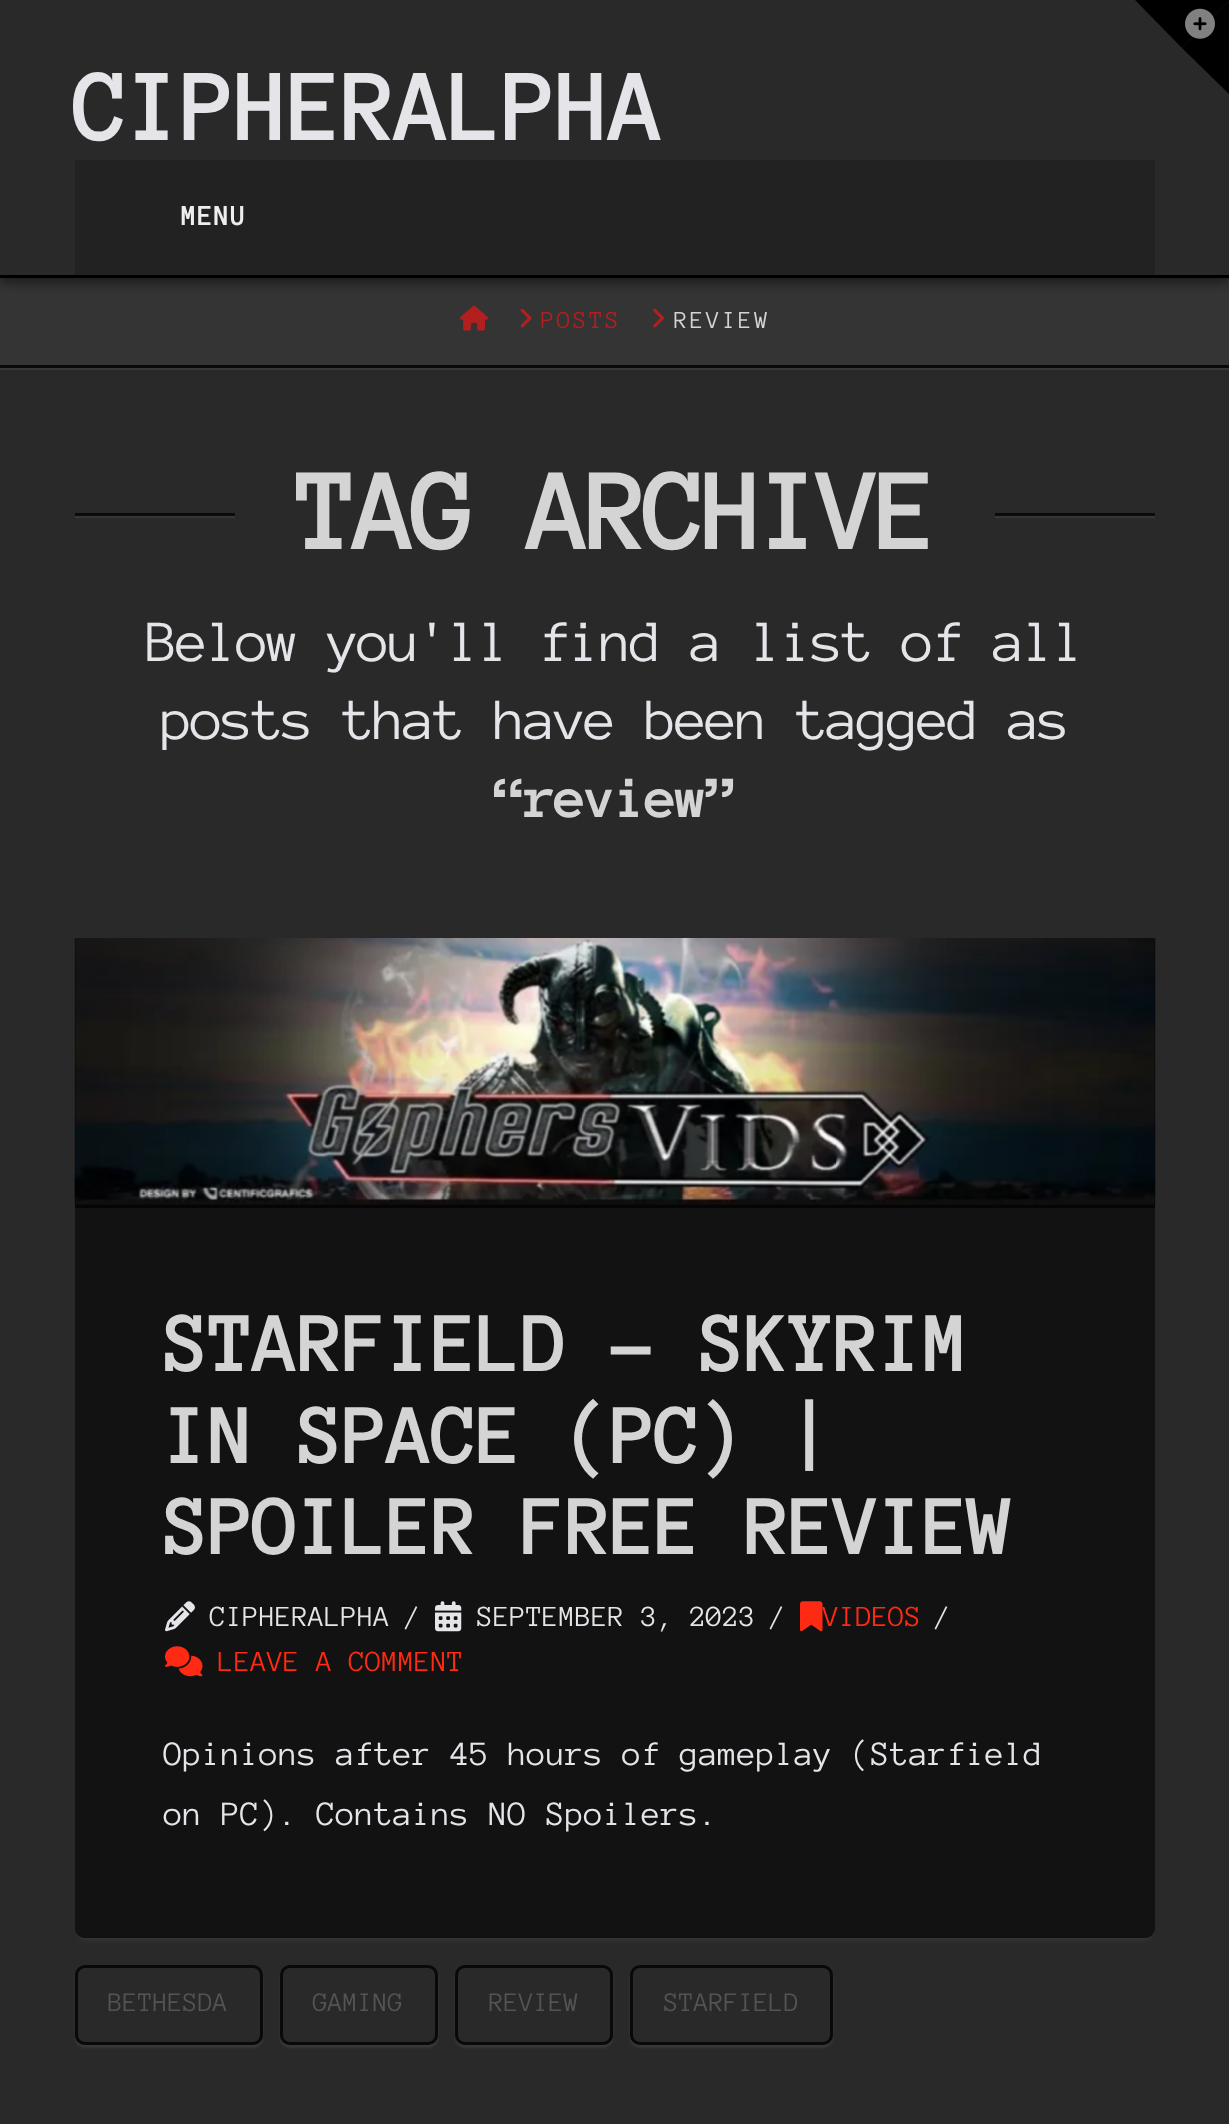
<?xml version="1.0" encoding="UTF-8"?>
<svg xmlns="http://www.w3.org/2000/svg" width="1229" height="2124">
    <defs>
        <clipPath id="clip1"><rect x="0" y="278" width="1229" height="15"/></clipPath>
        <filter id="blur1" x="-50%" y="-200%" width="200%" height="500%"><feGaussianBlur stdDeviation="6"/></filter>
        <filter id="blur2" x="-50%" y="-200%" width="200%" height="500%"><feGaussianBlur stdDeviation="2.5"/></filter>
        <clipPath id="clip2"><path d="M 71 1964 H 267 V 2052 H 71 Z M 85 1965 H 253 C 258.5 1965 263 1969.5 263 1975 V 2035 C 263 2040.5 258.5 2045 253 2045 H 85 C 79.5 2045 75 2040.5 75 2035 V 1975 C 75 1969.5 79.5 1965 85 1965 Z" clip-rule="evenodd"/></clipPath>
        <filter id="blur3" x="-50%" y="-200%" width="200%" height="500%"><feGaussianBlur stdDeviation="1"/></filter>
        <clipPath id="clip3"><path d="M 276 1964 H 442 V 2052 H 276 Z M 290 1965 H 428 C 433.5 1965 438 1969.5 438 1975 V 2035 C 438 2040.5 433.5 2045 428 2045 H 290 C 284.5 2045 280 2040.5 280 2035 V 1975 C 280 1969.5 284.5 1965 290 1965 Z" clip-rule="evenodd"/></clipPath>
        <clipPath id="clip4"><path d="M 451 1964 H 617 V 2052 H 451 Z M 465 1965 H 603 C 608.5 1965 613 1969.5 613 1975 V 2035 C 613 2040.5 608.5 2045 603 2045 H 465 C 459.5 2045 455 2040.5 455 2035 V 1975 C 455 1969.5 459.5 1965 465 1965 Z" clip-rule="evenodd"/></clipPath>
        <clipPath id="clip5"><path d="M 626 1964 H 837 V 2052 H 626 Z M 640 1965 H 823 C 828.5 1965 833 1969.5 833 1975 V 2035 C 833 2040.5 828.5 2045 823 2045 H 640 C 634.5 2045 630 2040.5 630 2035 V 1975 C 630 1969.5 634.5 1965 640 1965 Z" clip-rule="evenodd"/></clipPath>
    </defs>
    <rect width="100%" height="100%" fill="#292929"/>
    <rect x="995" y="513" width="160" height="2" fill="#0A0A0A"/>
    <rect x="75" y="513" width="160" height="2" fill="#0A0A0A"/>
    <rect x="0" y="278" width="1229" height="87" fill="#343434"/>
    <g clip-path="url(#clip1)">
        <rect x="0" y="5" width="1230" height="278" fill="#000000" fill-opacity="0.47" filter="url(#blur1)"/>
    </g>
    <path d="M 1135 0 H 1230 L 1182 48 Z" fill="#000000"/>
    <path d="M 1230 0 V 95 L 1182 48 Z" fill="#000000"/>
    <image x="1185" y="8" width="30" height="31" href="img_01.png"/>
    <rect x="0" y="275" width="1229" height="3" fill="#000000"/>
    <text x="74" y="140" font-family="Anonymous Pro" font-size="105" font-weight="700" letter-spacing="-3.75" fill="#E5E4E9">CIPHERALPHA</text>
    <rect x="75" y="160" width="1080" height="115" fill="#222222"/>
    <text x="181" y="225" font-family="Anonymous Pro" font-size="30" font-weight="700" fill="#EEEEEE">MENU</text>
    <rect x="0" y="368" width="1229" height="2" fill="#373737"/>
    <rect x="0" y="365" width="1229" height="3" fill="#090909"/>
    <image x="460" y="305" width="29" height="26" href="img_02.png"/>
    <image x="520" y="308" width="12" height="20" href="img_03.png"/>
    <text x="541" y="328" font-family="Anonymous Pro" font-size="25" letter-spacing="2.5" fill="#B11F1F">POSTS</text>
    <image x="653" y="308" width="11" height="20" href="img_04.png"/>
    <text x="674" y="328" font-family="Anonymous Pro" font-size="25" letter-spacing="2.5" fill="#D4D4D4">REVIEW</text>
    <rect x="75" y="516" width="160" height="2" fill="#363636"/>
    <rect x="75" y="515" width="160" height="1" fill="#0E0E0E"/>
    <text x="296" y="549" font-family="Anonymous Pro" font-size="120" font-weight="700" letter-spacing="-7.5" fill="#D4D4D4">TAG ARCHIVE</text>
    <rect x="995" y="516" width="160" height="2" fill="#363636"/>
    <rect x="995" y="515" width="160" height="1" fill="#0E0E0E"/>
    <text x="146" y="661" font-family="Anonymous Pro" font-size="60" letter-spacing="-2.5" fill="#E5E4E9">Below you'll find a list of all</text>
    <text x="161" y="739" font-family="Anonymous Pro" font-size="60" letter-spacing="-2.5" fill="#E5E4E9">posts that have been tagged as</text>
    <text x="494" y="817" font-family="Anonymous Pro" font-size="60" font-weight="700" letter-spacing="-2.5" fill="#D4D4D4">“review”</text>
    <rect x="75" y="1205" width="1080" height="3" fill="#050505"/>
    <rect x="75" y="938" width="1080" height="267" fill="#000000"/>
    <image x="74" y="938" width="1082" height="267" href="img_05.png"/>
    <rect x="80" y="1220" width="1070" height="720" rx="5" fill="#FFFFFF" fill-opacity="0.07" filter="url(#blur2)"/>
    <path d="M 75 1208 H 1155 V 1928 C 1155 1933.5 1150.5 1938 1145 1938 H 85 C 79.5 1938 75 1933.5 75 1928 Z" fill="#121212"/>
    <text font-family="Anonymous Pro" font-size="87.5" font-weight="700" letter-spacing="-3.1" fill="#D4D4D4">
        <tspan x="164" y="1371">STARFIELD – SKYRIM</tspan>
        <tspan x="164" y="1463">IN SPACE (PC) |</tspan>
        <tspan x="164" y="1554">SPOILER FREE REVIEW</tspan>
    </text>
    <image x="165" y="1601" width="30" height="31" href="img_06.png"/>
    <text x="210" y="1626" font-family="Anonymous Pro" font-size="30" fill="#E5E4E9">CIPHERALPHA</text>
    <text x="404" y="1626" font-family="Anonymous Pro" font-size="30" fill="#E5E4E9">/</text>
    <image x="435" y="1601" width="27" height="31" href="img_07.png"/>
    <text x="477" y="1626" font-family="Anonymous Pro" font-size="30" fill="#E5E4E9">SEPTEMBER 3, 2023</text>
    <text x="769" y="1626" font-family="Anonymous Pro" font-size="30" fill="#E5E4E9">/</text>
    <image x="800" y="1601" width="23" height="31" href="img_08.png"/>
    <text x="823" y="1626" font-family="Anonymous Pro" font-size="30" fill="#FF2A13">VIDEOS</text>
    <text x="934" y="1626" font-family="Anonymous Pro" font-size="30" fill="#E5E4E9">/</text>
    <image x="165" y="1646" width="38" height="31" href="img_09.png"/>
    <text x="218" y="1671" font-family="Anonymous Pro" font-size="30" fill="#FF2A13">LEAVE A COMMENT</text>
    <text font-family="Anonymous Pro" font-size="35" fill="#E5E4E9">
        <tspan x="164" y="1765">Opinions after 45 hours of gameplay (Starfield</tspan>
        <tspan x="164" y="1825">on PC). Contains NO Spoilers.</tspan>
    </text>
    <g clip-path="url(#clip2)">
        <rect x="75" y="1968" width="188" height="80" rx="10" fill="#FFFFFF" fill-opacity="0.07" filter="url(#blur3)"/>
    </g>
    <rect x="76.5" y="1966.5" width="185" height="77" rx="8.5" fill="none" stroke="#000000" stroke-opacity="0.78" stroke-width="3"/>
    <text x="108" y="2011" font-family="Anonymous Pro" font-size="27.5" fill="#545454">BETHESDA</text>
    <g clip-path="url(#clip3)">
        <rect x="280" y="1968" width="158" height="80" rx="10" fill="#FFFFFF" fill-opacity="0.07" filter="url(#blur3)"/>
    </g>
    <rect x="281.5" y="1966.5" width="155" height="77" rx="8.5" fill="none" stroke="#000000" stroke-opacity="0.78" stroke-width="3"/>
    <text x="313" y="2011" font-family="Anonymous Pro" font-size="27.5" fill="#545454">GAMING</text>
    <g clip-path="url(#clip4)">
        <rect x="455" y="1968" width="158" height="80" rx="10" fill="#FFFFFF" fill-opacity="0.07" filter="url(#blur3)"/>
    </g>
    <rect x="456.5" y="1966.5" width="155" height="77" rx="8.5" fill="none" stroke="#000000" stroke-opacity="0.78" stroke-width="3"/>
    <text x="489" y="2011" font-family="Anonymous Pro" font-size="27.5" fill="#545454">REVIEW</text>
    <g clip-path="url(#clip5)">
        <rect x="630" y="1968" width="203" height="80" rx="10" fill="#FFFFFF" fill-opacity="0.07" filter="url(#blur3)"/>
    </g>
    <rect x="631.5" y="1966.5" width="200" height="77" rx="8.5" fill="none" stroke="#000000" stroke-opacity="0.78" stroke-width="3"/>
    <text x="664" y="2011" font-family="Anonymous Pro" font-size="27.5" fill="#545454">STARFIELD</text>
</svg>
